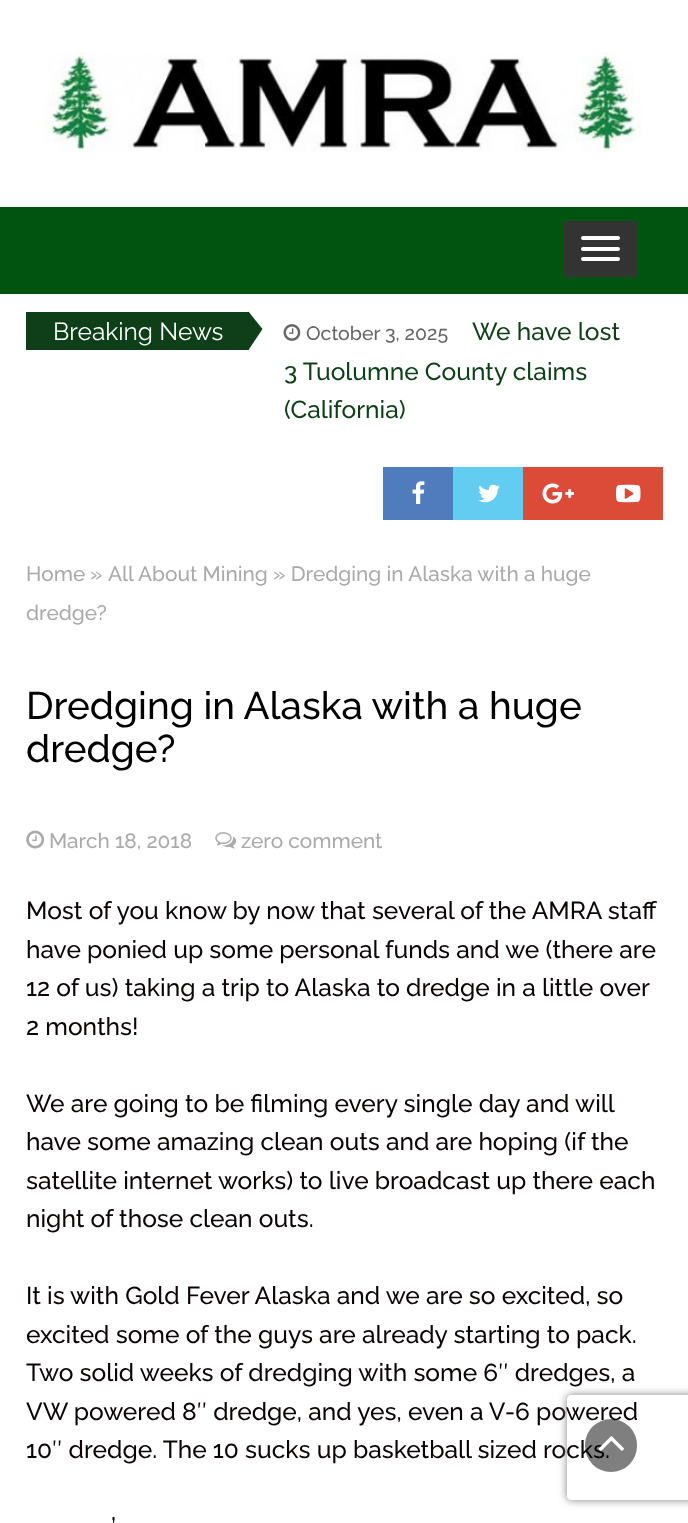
<?xml version="1.0" encoding="UTF-8"?>
<svg xmlns="http://www.w3.org/2000/svg" width="688" height="1523">
    <defs>
        <clipPath id="clip1"><path d="M 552 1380 H 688 V 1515 H 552 Z M 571 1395 H 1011 C 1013 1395 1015 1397 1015 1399 V 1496 C 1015 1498 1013 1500 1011 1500 H 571 C 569 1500 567 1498 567 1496 V 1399 C 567 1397 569 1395 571 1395 Z" clip-rule="evenodd"/></clipPath>
        <filter id="blur1" x="-50%" y="-200%" width="200%" height="500%"><feGaussianBlur stdDeviation="4.5"/></filter>
    </defs>
    <rect width="100%" height="100%" fill="#FFFFFF"/>
    <image x="44" y="52" width="598" height="100" href="img_01.png"/>
    <rect x="0" y="207" width="688" height="87" fill="#005410"/>
    <rect x="564" y="221" width="73" height="56" fill="#333333"/>
    <rect x="581" y="236" width="39" height="4" rx="2" fill="#FFFFFF"/>
    <rect x="581" y="247" width="39" height="4" rx="2" fill="#FFFFFF"/>
    <rect x="581" y="257" width="39" height="4" rx="2" fill="#FFFFFF"/>
    <rect x="26" y="312" width="223" height="38" fill="#0E3F19"/>
    <text x="53" y="340" font-family="Raleway" font-size="24.5" fill="#FFFFFF">Breaking News</text>
    <path d="M 248.5 350 V 311.5 L 262.5 329 Z" fill="#0E3F19"/>
    <image x="283" y="324" width="18" height="17" href="img_02.png"/>
    <text x="306" y="340" font-family="Raleway" font-size="19.5" font-weight="500" fill="#666666">October 3, 2025</text>
    <text x="472" y="340" font-family="Raleway" font-size="24.5" font-weight="500" fill="#0E3F19">We have lost</text>
    <text font-family="Raleway" font-size="24.5" font-weight="500" fill="#0E3F19">
        <tspan x="284" y="380">3 Tuolumne County claims</tspan>
        <tspan x="284" y="418">(California)</tspan>
    </text>
    <rect x="383" y="467" width="70" height="53" fill="#507CBE"/>
    <image x="412" y="481" width="13" height="23" href="img_03.png"/>
    <rect x="453" y="467" width="70" height="53" fill="#63CCF1"/>
    <image x="478" y="484" width="22" height="19" href="img_04.png"/>
    <rect x="523" y="467" width="140" height="53" fill="#DC4A38"/>
    <image x="542" y="483" width="32" height="21" href="img_05.png"/>
    <image x="616" y="484" width="25" height="19" href="img_06.png"/>
    <text x="26" y="581" font-family="Raleway" font-size="20.8" font-weight="500" fill="#AAAAAA">Home</text>
    <text x="90" y="581" font-family="Raleway" font-size="20.8" font-weight="500" fill="#AAAAAA">»</text>
    <text x="108" y="581" font-family="Raleway" font-size="20.8" font-weight="500" fill="#AAAAAA">All About Mining » Dredging in Alaska with a huge</text>
    <text x="26" y="620" font-family="Raleway" font-size="20.8" font-weight="500" fill="#AAAAAA">dredge?</text>
    <text font-family="Raleway" font-size="38.5" font-weight="500" fill="#000000">
        <tspan x="26" y="719">Dredging in Alaska with a huge</tspan>
        <tspan x="26" y="762">dredge?</tspan>
    </text>
    <image x="26" y="830" width="19" height="19" href="img_07.png"/>
    <text x="49" y="848" font-family="Raleway" font-size="20.8" font-weight="500" fill="#AAAAAA">March 18, 2018</text>
    <image x="215" y="832" width="21" height="17" href="img_08.png"/>
    <text x="241" y="848" font-family="Raleway" font-size="20.8" font-weight="500" fill="#AAAAAA">zero comment</text>
    <text font-family="Raleway" font-size="24.5" font-weight="500" fill="#0A0404">
        <tspan x="26" y="919">Most of you know by now that several of the AMRA staff</tspan>
        <tspan x="26" y="958">have ponied up some personal funds and we (there are</tspan>
        <tspan x="26" y="996">12 of us) taking a trip to Alaska to dredge in a little over</tspan>
        <tspan x="26" y="1035">2 months!</tspan>
    </text>
    <text font-family="Raleway" font-size="24.5" font-weight="500" fill="#0A0404">
        <tspan x="26" y="1112">We are going to be filming every single day and will</tspan>
        <tspan x="26" y="1150">have some amazing clean outs and are hoping (if the</tspan>
        <tspan x="26" y="1189">satellite internet works) to live broadcast up there each</tspan>
        <tspan x="26" y="1227">night of those clean outs.</tspan>
    </text>
    <text font-family="Raleway" font-size="24.5" font-weight="500" fill="#0A0404">
        <tspan x="26" y="1304">It is with Gold Fever Alaska and we are so excited, so</tspan>
        <tspan x="26" y="1343">excited some of the guys are already starting to pack.</tspan>
        <tspan x="26" y="1381">Two solid weeks of dredging with some 6″ dredges, a</tspan>
        <tspan x="26" y="1420">VW powered 8″ dredge, and yes, even a V-6 powered</tspan>
        <tspan x="26" y="1458">10″ dredge. The 10 sucks up basketball sized rocks.</tspan>
    </text>
    <text x="111" y="1535" font-family="Raleway" font-size="24.5" font-weight="500" fill="#0A0404">’</text>
    <g clip-path="url(#clip1)">
        <rect x="567" y="1395" width="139" height="105" rx="4" fill="#808080" filter="url(#blur1)"/>
    </g>
    <rect x="585" y="1419" width="52" height="53" rx="26" fill="#000000" fill-opacity="0.5"/>
    <image x="598" y="1436" width="26" height="15" href="img_09.png"/>
</svg>
